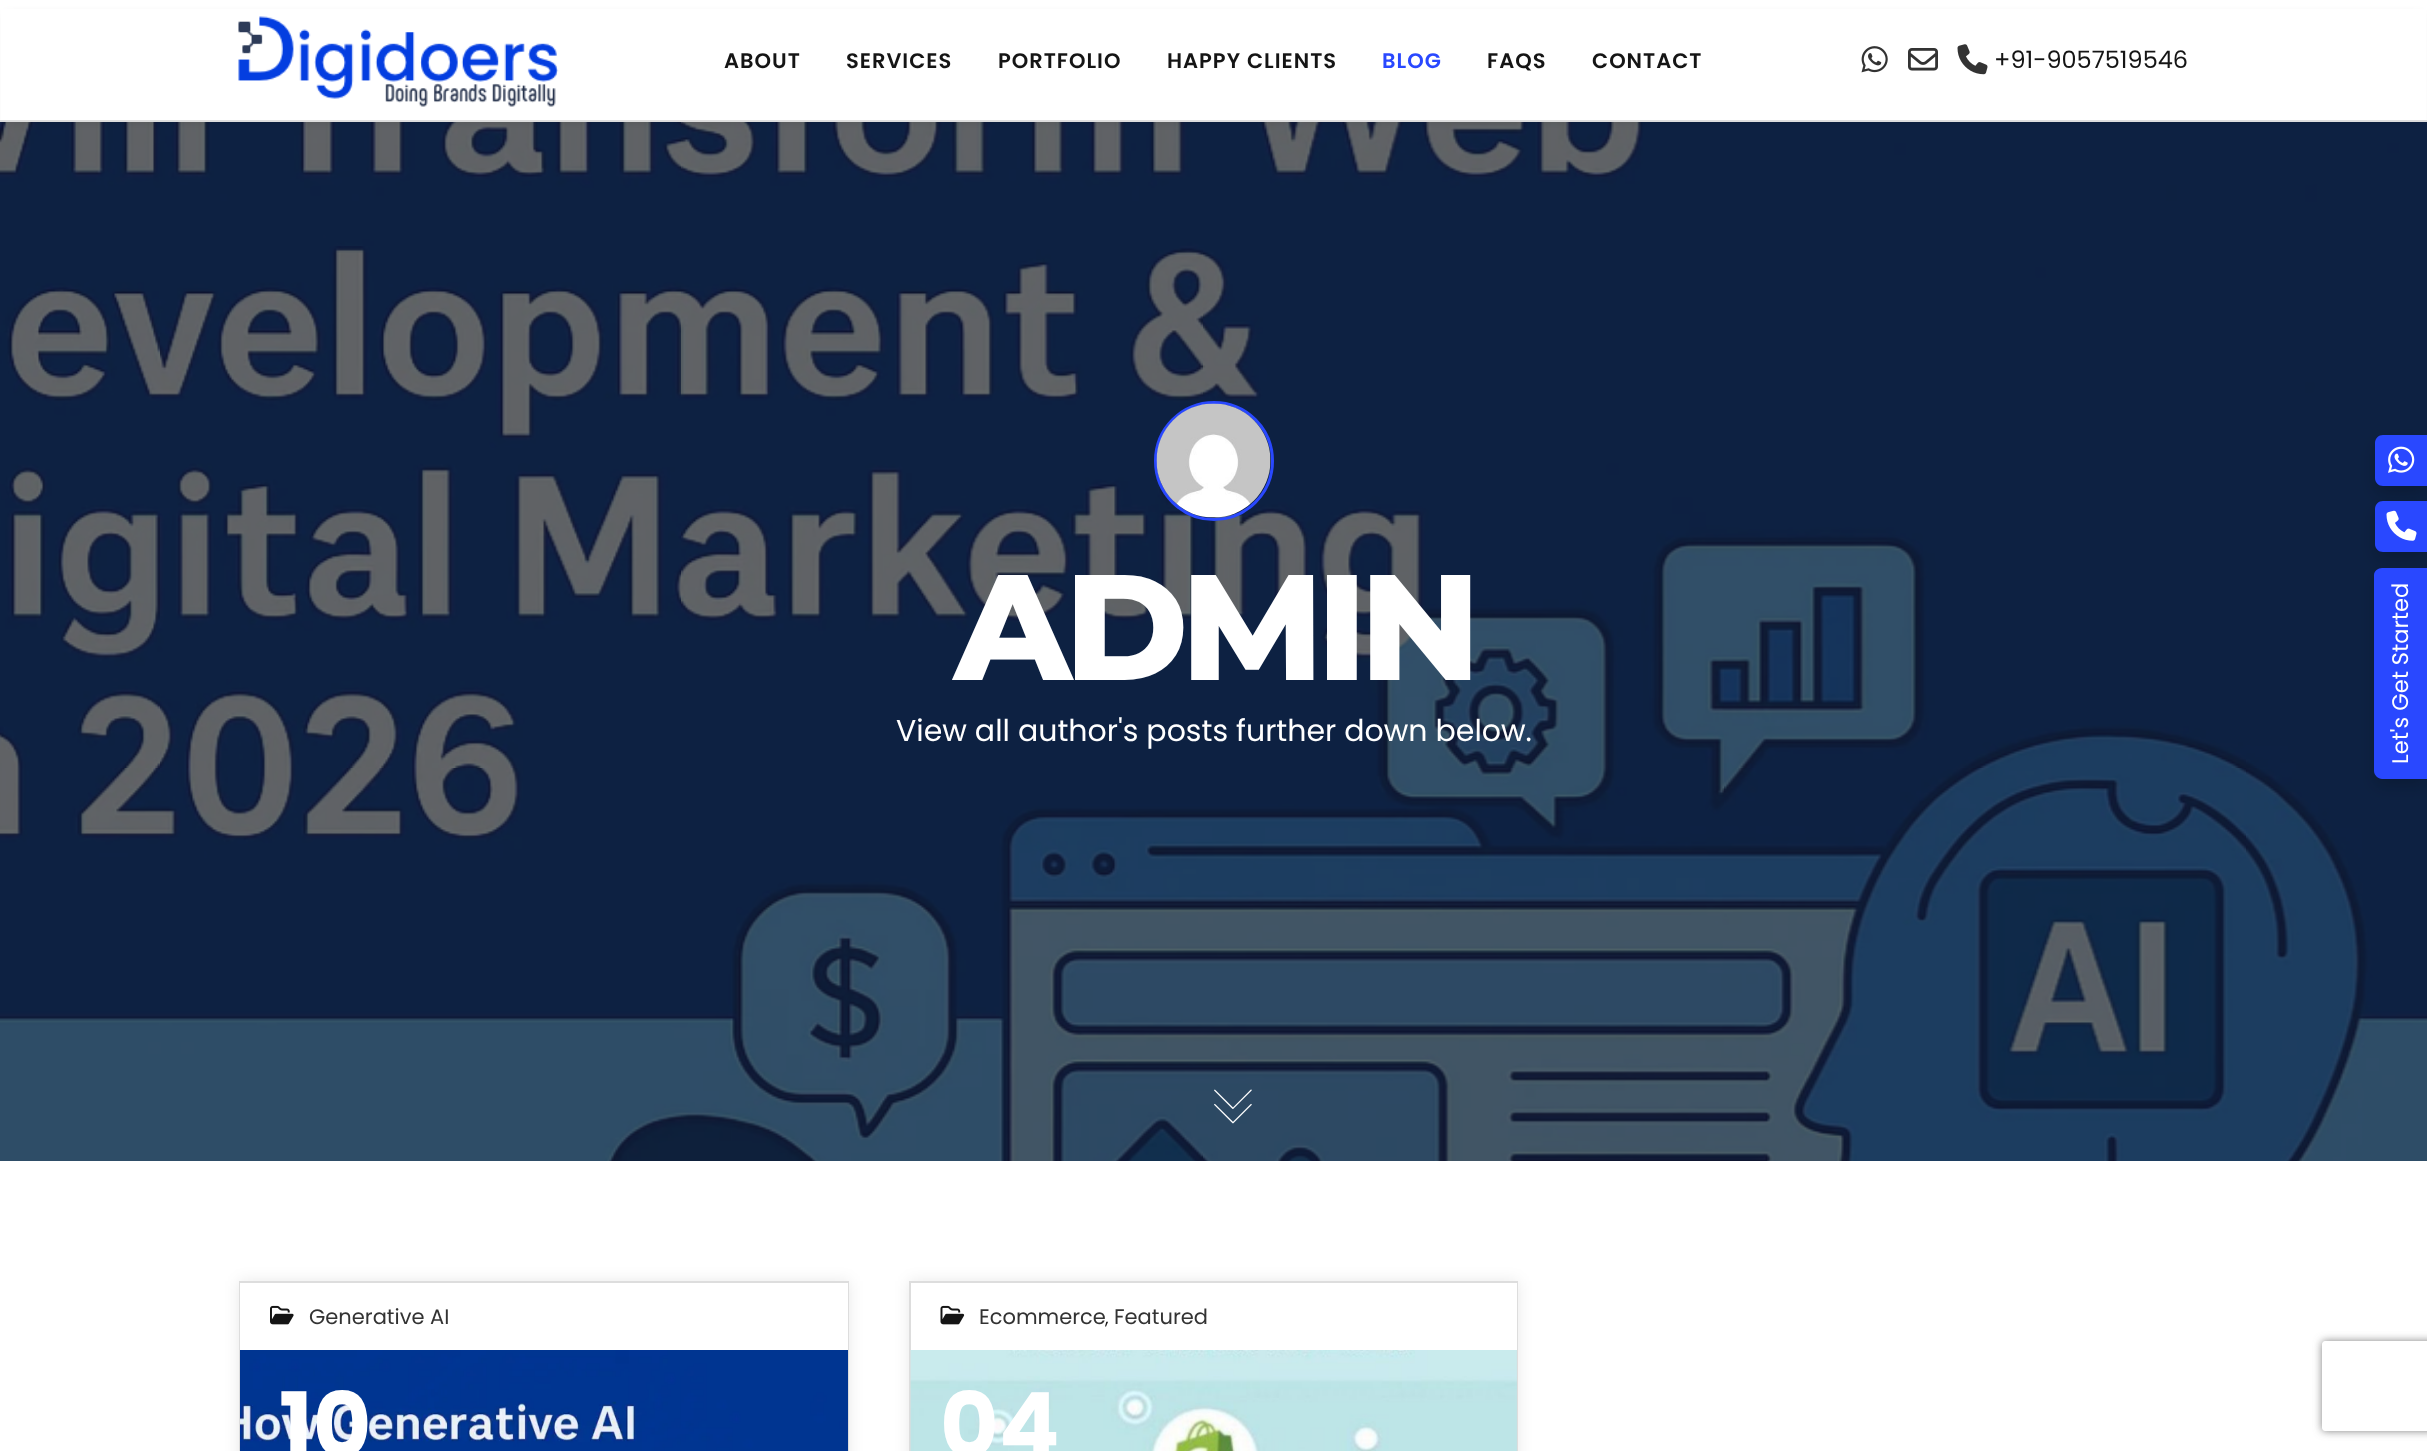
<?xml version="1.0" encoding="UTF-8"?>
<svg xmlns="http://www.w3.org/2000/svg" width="2427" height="1451">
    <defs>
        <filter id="blur1" x="-50%" y="-200%" width="200%" height="500%"><feGaussianBlur stdDeviation="4"/></filter>
        <filter id="blur2" x="-50%" y="-200%" width="200%" height="500%"><feGaussianBlur stdDeviation="8"/></filter>
        <filter id="blur3" x="-50%" y="-200%" width="200%" height="500%"><feGaussianBlur stdDeviation="7.5"/></filter>
        <clipPath id="clip1"><path d="M 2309 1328 H 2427 V 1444 H 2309 Z M 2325 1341 H 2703 C 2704.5 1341 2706 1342.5 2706 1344 V 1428 C 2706 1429.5 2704.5 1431 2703 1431 H 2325 C 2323.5 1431 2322 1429.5 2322 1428 V 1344 C 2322 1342.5 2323.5 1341 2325 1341 Z" clip-rule="evenodd"/></clipPath>
    </defs>
    <rect width="100%" height="100%" fill="#FFFFFF"/>
    <image x="0" y="122" width="2427" height="1039" href="img_05.png"/>
    <rect x="6" y="14" width="2415" height="109" fill="#000000" fill-opacity="0.1" filter="url(#blur1)"/>
    <rect x="1" y="9" width="2425" height="111" fill="#FFFFFF"/>
    <rect x="0" y="120" width="2427" height="2" fill="#DDDDDD"/>
    <image x="238" y="16" width="321" height="91" href="img_01.png"/>
    <text x="724" y="68" font-family="Poppins" font-size="21" font-weight="600" letter-spacing="1" fill="#151515">ABOUT</text>
    <text x="846" y="68" font-family="Poppins" font-size="21" font-weight="600" letter-spacing="1" fill="#151515">SERVICES</text>
    <text x="998" y="68" font-family="Poppins" font-size="21" font-weight="600" letter-spacing="1" fill="#151515">PORTFOLIO</text>
    <text x="1167" y="68" font-family="Poppins" font-size="21" font-weight="600" letter-spacing="1" fill="#151515">HAPPY CLIENTS</text>
    <text x="1382" y="68" font-family="Poppins" font-size="21" font-weight="600" letter-spacing="1" fill="#2948FF">BLOG</text>
    <text x="1487" y="68" font-family="Poppins" font-size="21" font-weight="600" letter-spacing="1" fill="#151515">FAQS</text>
    <text x="1592" y="68" font-family="Poppins" font-size="21" font-weight="600" letter-spacing="1" fill="#151515">CONTACT</text>
    <image x="1861" y="46" width="27" height="27" href="img_02.png"/>
    <image x="1908" y="48" width="30" height="23" href="img_03.png"/>
    <image x="1957" y="44" width="31" height="31" href="img_04.png"/>
    <text x="1994" y="68" font-family="Poppins" font-size="24" fill="#151515">+91-9057519546</text>
    <circle cx="1214" cy="461" r="58.5" fill="none" stroke="#2948FF" stroke-width="3"/>
    <image x="1156" y="403" width="115" height="115" href="img_06.png"/>
    <text x="954" y="680" font-family="Montserrat" font-size="150" font-weight="800" letter-spacing="-7.5" fill="#FFFFFF">ADMIN</text>
    <text x="896" y="741" font-family="Poppins" font-size="30" fill="#FFFFFF">View all author's posts further down below.</text>
    <image x="1214" y="1089" width="38" height="35" href="img_07.png"/>
    <rect x="2375" y="443" width="52" height="51" rx="8" fill="#000000" fill-opacity="0.18" filter="url(#blur2)"/>
    <path d="M 2383 435 H 2427 V 486 H 2383 C 2378.5 486 2375 482.5 2375 478 V 443 C 2375 438.5 2378.5 435 2383 435 Z" fill="#2948FF"/>
    <image x="2388" y="446" width="27" height="27" href="img_08.png"/>
    <rect x="2375" y="509" width="52" height="51" rx="8" fill="#000000" fill-opacity="0.18" filter="url(#blur2)"/>
    <path d="M 2383 501 H 2427 V 552 H 2383 C 2378.5 552 2375 548.5 2375 544 V 509 C 2375 504.5 2378.5 501 2383 501 Z" fill="#2948FF"/>
    <image x="2386" y="510" width="31" height="31" href="img_09.png"/>
    <rect x="2375" y="575" width="52" height="211" rx="8" fill="#000000" fill-opacity="0.18" filter="url(#blur2)"/>
    <path d="M 2427 779 H 2382 C 2378 779 2374 775 2374 771 V 575 C 2374 571 2378 568 2382 568 H 2427 Z" fill="#2948FF"/>
    <text x="2408" y="764" transform="rotate(-90 2408 764)" font-family="Poppins" font-size="22.5" fill="#FFFFFF">Let's Get Started</text>
    <rect x="239" y="1281" width="610" height="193" fill="#000000" fill-opacity="0.09" filter="url(#blur3)"/>
    <rect x="240" y="1282" width="608" height="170" fill="none" stroke="#DDDDDD" stroke-width="2"/>
    <rect x="240" y="1283" width="608" height="67" fill="#FFFFFF"/>
    <image x="270" y="1305" width="24" height="20" href="img_10.png"/>
    <text x="309" y="1324" font-family="Poppins" font-size="21" fill="#333333">Generative AI</text>
    <image x="240" y="1350" width="608" height="101" href="img_11.png"/>
    <text x="279" y="1457" font-family="Poppins" font-size="90" font-weight="700" fill="#FFFFFF">10</text>
    <rect x="909" y="1281" width="609" height="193" fill="#000000" fill-opacity="0.09" filter="url(#blur3)"/>
    <rect x="910" y="1282" width="607" height="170" fill="none" stroke="#DDDDDD" stroke-width="2"/>
    <rect x="911" y="1283" width="606" height="67" fill="#FFFFFF"/>
    <image x="940" y="1305" width="25" height="20" href="img_12.png"/>
    <text x="979" y="1324" font-family="Poppins" font-size="21" fill="#333333">Ecommerce</text>
    <text x="1105" y="1324" font-family="Poppins" font-size="18" fill="#151515">,</text>
    <text x="1114" y="1324" font-family="Poppins" font-size="21" fill="#333333">Featured</text>
    <image x="910" y="1350" width="607" height="101" href="img_13.png"/>
    <text x="940" y="1457" font-family="Poppins" font-size="90" font-weight="700" fill="#FFFFFF">04</text>
    <g clip-path="url(#clip1)">
        <rect x="2322" y="1341" width="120" height="90" rx="3" fill="#808080" filter="url(#blur1)"/>
    </g>
</svg>
